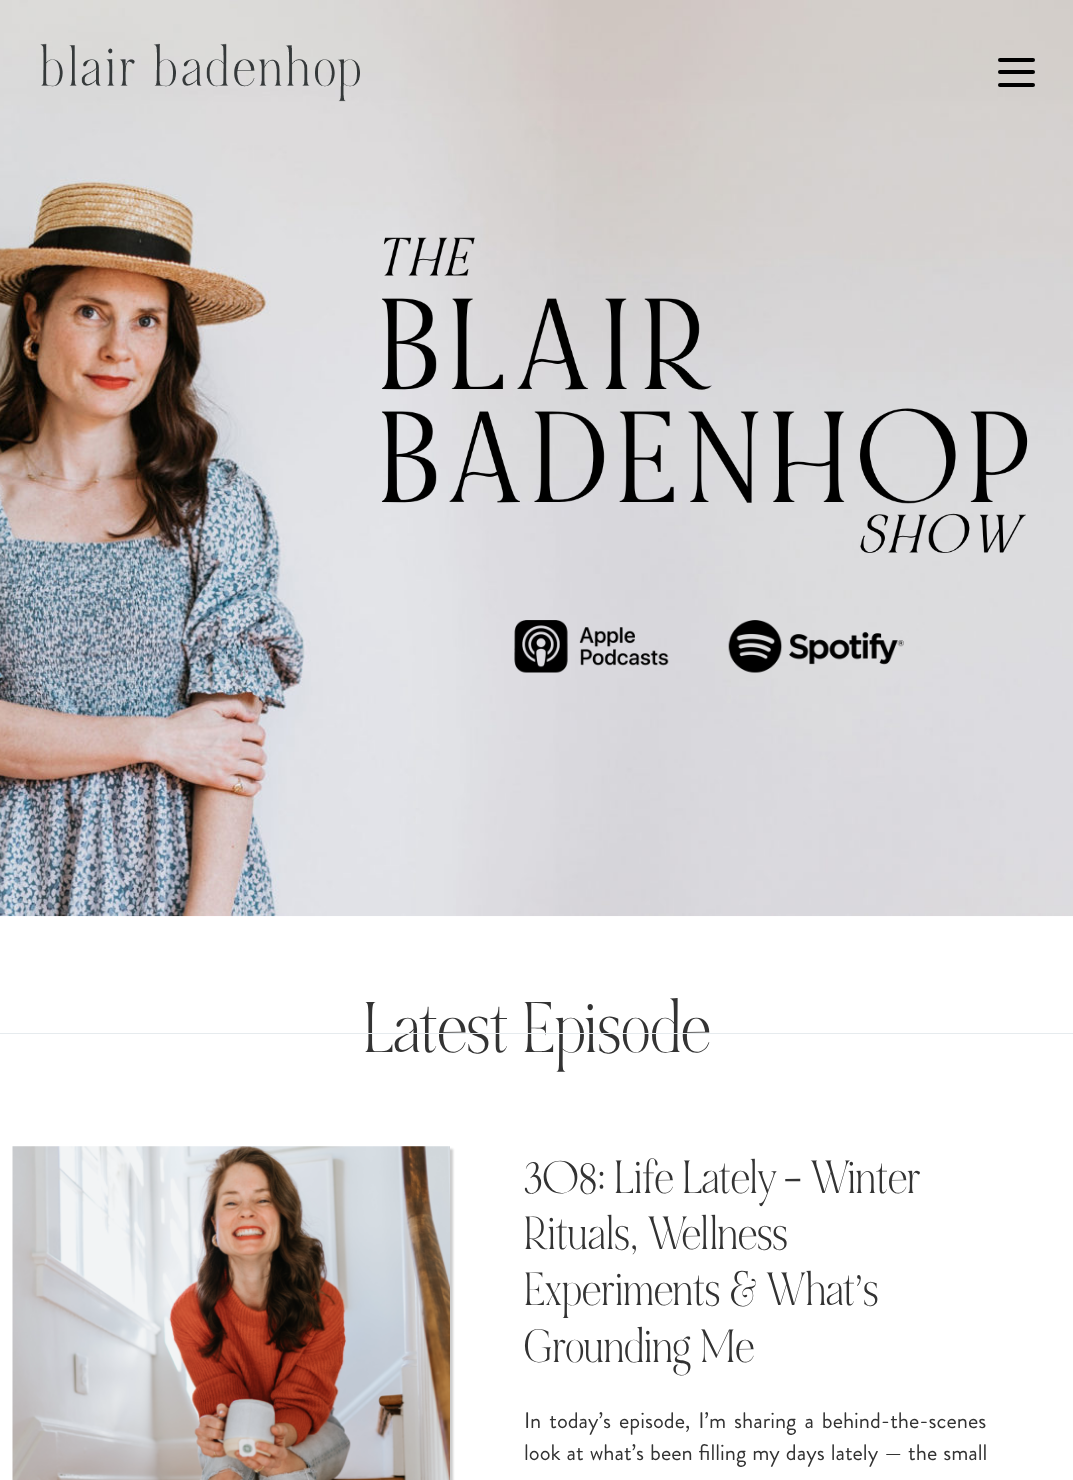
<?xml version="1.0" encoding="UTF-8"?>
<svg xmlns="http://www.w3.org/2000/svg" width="1073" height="1480">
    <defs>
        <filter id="blur1" x="-50%" y="-200%" width="200%" height="500%"><feGaussianBlur stdDeviation="1"/></filter>
    </defs>
    <rect width="100%" height="100%" fill="#FFFFFF"/>
    <image x="0" y="0" width="1073" height="917" href="img_02.png"/>
    <image x="40" y="43" width="320" height="59" href="img_01.png"/>
    <rect x="998" y="58" width="37" height="4" rx="2" fill="#000000"/>
    <rect x="998" y="70" width="37" height="4" rx="2" fill="#000000"/>
    <rect x="998" y="83" width="37" height="4" rx="2" fill="#000000"/>
    <image x="381" y="237" width="647" height="316" href="img_03.png"/>
    <image x="514" y="620" width="155" height="53" href="img_04.png"/>
    <image x="728" y="620" width="176" height="53" href="img_05.png"/>
    <text x="364" y="1052" font-family="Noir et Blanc" font-size="57.5" fill="#333333">Latest Episode</text>
    <rect x="0" y="1033" width="1073" height="1" fill="#E6EBEE"/>
    <rect x="15" y="1149" width="438" height="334" fill="#000000" fill-opacity="0.2" filter="url(#blur1)"/>
    <image x="12" y="1146" width="438" height="334" href="img_06.png"/>
    <text font-family="Noir et Blanc" font-size="37.5" fill="#333333">
        <tspan x="524" y="1193">308: Life Lately – Winter</tspan>
        <tspan x="524" y="1249">Rituals, Wellness</tspan>
        <tspan x="524" y="1305">Experiments &amp; What’s</tspan>
        <tspan x="524" y="1362">Grounding Me</tspan>
    </text>
    <text font-family="Brandon Grotesque" font-size="22.5" fill="#333333">
        <tspan x="524" y="1428" word-spacing="3">In today’s episode, I’m sharing a behind-the-scenes</tspan>
        <tspan x="524" y="1460" word-spacing="1">look at what’s been filling my days lately — the small</tspan>
    </text>
</svg>
